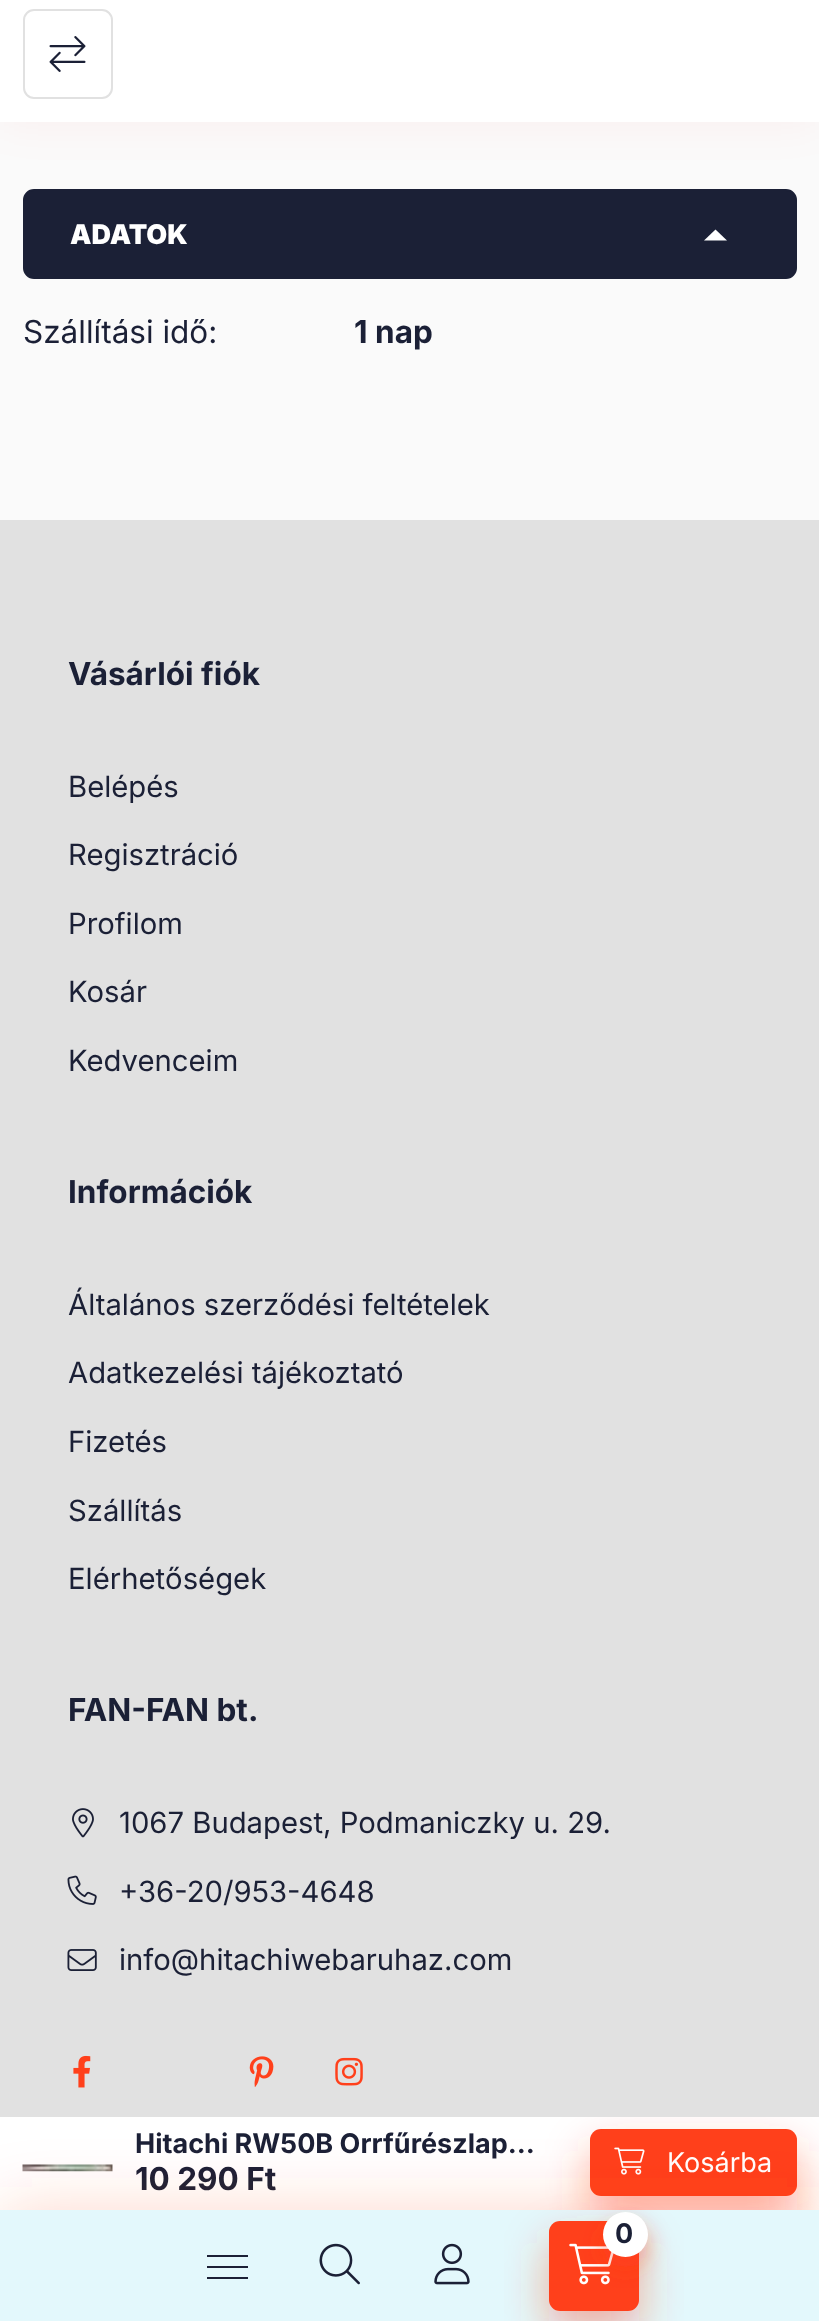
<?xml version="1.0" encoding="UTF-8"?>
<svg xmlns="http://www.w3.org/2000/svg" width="819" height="2321">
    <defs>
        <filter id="blur1" x="-50%" y="-200%" width="200%" height="500%"><feGaussianBlur stdDeviation="22.5"/></filter>
        <clipPath id="clip1"><rect x="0" y="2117" width="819" height="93"/></clipPath>
        <filter id="blur2" x="-50%" y="-200%" width="200%" height="500%"><feGaussianBlur stdDeviation="34"/></filter>
        <filter id="blur3" x="-50%" y="-200%" width="200%" height="500%"><feGaussianBlur stdDeviation="11"/></filter>
    </defs>
    <rect width="100%" height="100%" fill="#FAFAFA"/>
    <rect x="0" y="-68" width="819" height="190" fill="#FF401B" fill-opacity="0.05" filter="url(#blur1)"/>
    <rect x="0" y="0" width="819" height="122" fill="#FFFFFF"/>
    <rect x="24" y="10" width="88" height="88" rx="10" fill="none" stroke="#E1E1E1" stroke-width="2"/>
    <image x="49" y="36" width="37" height="36" href="img_01.png"/>
    <rect x="24" y="190" width="772" height="88" rx="10" fill="#1B2036" stroke="#1B2036" stroke-width="2"/>
    <text x="70" y="244" font-family="Inter" font-size="27" font-weight="900" fill="#FFFFFF">ADATOK</text>
    <path d="M 704 240.5 H 727 L 715.5 229.5 Z" fill="#FFFFFF"/>
    <text x="23" y="343" font-family="Inter" font-size="31.5" fill="#1B2036">Szállítási idő:</text>
    <text x="354" y="343" font-family="Inter" font-size="31.5" font-weight="700" fill="#1B2036">1 nap</text>
    <rect x="0" y="2117" width="819" height="93" fill="#FFFFFF"/>
    <image x="22" y="2164" width="91" height="8" href="img_02.png"/>
    <text x="135" y="2153" font-family="Inter" font-size="27" font-weight="700" fill="#1B2036">Hitachi RW50B Orrfűrészlap…</text>
    <text x="135" y="2190" font-family="Inter" font-size="31.5" font-weight="700" fill="#1B2036">10 290 Ft</text>
    <rect x="0" y="520" width="819" height="1597" fill="#E1E1E1"/>
    <g clip-path="url(#clip1)">
        <rect x="590" y="2151" width="207" height="68" rx="11" fill="#FF401B" fill-opacity="0.4" filter="url(#blur1)"/>
    </g>
    <rect x="590" y="2129" width="207" height="67" rx="11" fill="#FF401B"/>
    <image x="614" y="2147" width="31" height="28" href="img_03.png"/>
    <text x="667" y="2172" font-family="Inter" font-size="27" fill="#FFFFFF">Kosárba</text>
    <text x="68" y="685" font-family="Inter" font-size="31.5" font-weight="700" fill="#1B2036">Vásárlói fiók</text>
    <text x="68" y="797" font-family="Inter" font-size="29.25" fill="#1B2036">Belépés</text>
    <text x="68" y="865" font-family="Inter" font-size="29.25" fill="#1B2036">Regisztráció</text>
    <text x="68" y="934" font-family="Inter" font-size="29.25" fill="#1B2036">Profilom</text>
    <text x="68" y="1002" font-family="Inter" font-size="29.25" fill="#1B2036">Kosár</text>
    <text x="68" y="1071" font-family="Inter" font-size="29.25" fill="#1B2036">Kedvenceim</text>
    <text x="68" y="1203" font-family="Inter" font-size="31.5" font-weight="700" fill="#1B2036">Információk</text>
    <text x="68" y="1315" font-family="Inter" font-size="29.25" fill="#1B2036">Általános szerződési feltételek</text>
    <text x="68" y="1383" font-family="Inter" font-size="29.25" fill="#1B2036">Adatkezelési tájékoztató</text>
    <text x="68" y="1452" font-family="Inter" font-size="29.25" fill="#1B2036">Fizetés</text>
    <text x="68" y="1521" font-family="Inter" font-size="29.25" fill="#1B2036">Szállítás</text>
    <text x="68" y="1589" font-family="Inter" font-size="29.25" fill="#1B2036">Elérhetőségek</text>
    <text x="68" y="1721" font-family="Inter" font-size="31.5" font-weight="700" fill="#1B2036">FAN-FAN bt.</text>
    <image x="72" y="1808" width="22" height="30" href="img_04.png"/>
    <text x="119" y="1833" font-family="Inter" font-size="29.25" fill="#1B2036">1067 Budapest, Podmaniczky u. 29.</text>
    <image x="67" y="1875" width="30" height="30" href="img_05.png"/>
    <text x="119" y="1902" font-family="Inter" font-size="29.25" fill="#1B2036">+36-20/953-4648</text>
    <image x="67" y="1949" width="30" height="22" href="img_06.png"/>
    <text x="119" y="1970" font-family="Inter" font-size="29.25" fill="#1B2036">info@hitachiwebaruhaz.com</text>
    <image x="73" y="2055" width="18" height="33" href="img_07.png"/>
    <image x="249" y="2056" width="25" height="31" href="img_08.png"/>
    <image x="335" y="2057" width="28" height="29" href="img_09.png"/>
    <rect x="0" y="2210" width="819" height="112" fill="#FF401B" fill-opacity="0.2" filter="url(#blur2)"/>
    <rect x="0" y="2210" width="819" height="111" fill="#E3F8FC"/>
    <rect x="549" y="2243" width="90" height="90" rx="11" fill="#FF401B" fill-opacity="0.4" filter="url(#blur1)"/>
    <rect x="549" y="2221" width="90" height="90" rx="11" fill="#FF401B"/>
    <image x="569" y="2243" width="45" height="42" href="img_10.png"/>
    <rect x="603" y="2223" width="45" height="45" rx="22.5" fill="#FF401B" fill-opacity="0.4" filter="url(#blur3)"/>
    <circle cx="625.5" cy="2234.5" r="22.5" fill="#FFFFFF"/>
    <text x="615" y="2243" font-family="Inter" font-size="27" font-weight="700" fill="#1B2036">0</text>
    <rect x="207" y="2255" width="41" height="2" fill="#1B2036"/>
    <rect x="207" y="2266" width="41" height="2" fill="#1B2036"/>
    <rect x="207" y="2277" width="41" height="2" fill="#1B2036"/>
    <image x="319" y="2243" width="41" height="42" href="img_11.png"/>
    <image x="434" y="2243" width="36" height="42" href="img_12.png"/>
</svg>
